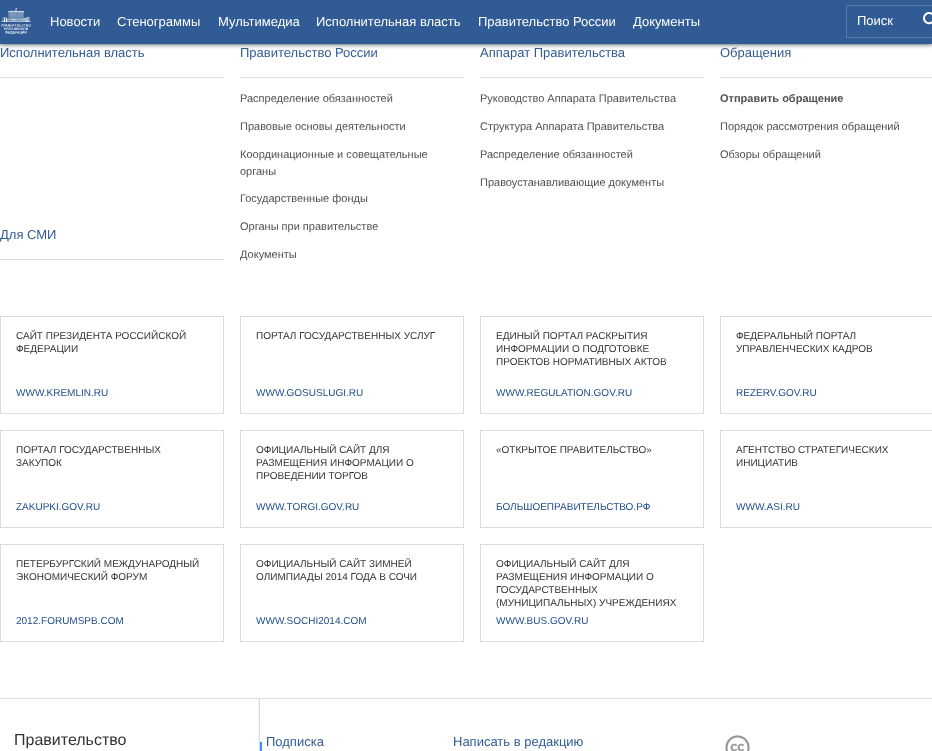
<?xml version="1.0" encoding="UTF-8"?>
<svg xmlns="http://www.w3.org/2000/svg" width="932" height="751">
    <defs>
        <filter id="blur1" x="-50%" y="-200%" width="200%" height="500%"><feGaussianBlur stdDeviation="2.5"/></filter>
    </defs>
    <rect width="100%" height="100%" fill="#FFFFFF"/>
    <rect x="0" y="-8" width="932" height="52" fill="#1C2939" filter="url(#blur1)"/>
    <rect x="0" y="0" width="932" height="44" fill="#305B94"/>
    <image x="1" y="8" width="30" height="26" href="img_01.png"/>
    <text x="50" y="26" font-family="Liberation Sans" font-size="13" fill="#FFFFFF">Новости</text>
    <text x="117" y="26" font-family="Liberation Sans" font-size="13" fill="#FFFFFF">Стенограммы</text>
    <text x="218" y="26" font-family="Liberation Sans" font-size="13" fill="#FFFFFF">Мультимедиа</text>
    <text x="316" y="26" font-family="Liberation Sans" font-size="13" fill="#FFFFFF">Исполнительная власть</text>
    <text x="478" y="26" font-family="Liberation Sans" font-size="13" fill="#FFFFFF">Правительство России</text>
    <text x="633" y="26" font-family="Liberation Sans" font-size="13" fill="#FFFFFF">Документы</text>
    <rect x="846.5" y="5.5" width="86" height="32" fill="none" stroke="#597AAC"/>
    <text x="857" y="25" font-family="Liberation Sans" font-size="13" fill="#FFFFFF">Поиск</text>
    <image x="923" y="12" width="9" height="13" href="img_02.png"/>
    <rect x="0" y="77" width="224" height="1" fill="#DCDCDC"/>
    <text x="0" y="57" font-family="Liberation Sans" font-size="13" fill="#305B94">Исполнительная власть</text>
    <rect x="240" y="77" width="224" height="1" fill="#DCDCDC"/>
    <text x="240" y="57" font-family="Liberation Sans" font-size="13" fill="#305B94">Правительство России</text>
    <text x="240" y="102" font-family="Liberation Sans" font-size="11" fill="#505050">Распределение обязанностей</text>
    <text x="240" y="130" font-family="Liberation Sans" font-size="11" fill="#505050">Правовые основы деятельности</text>
    <text font-family="Liberation Sans" font-size="11" fill="#505050">
        <tspan x="240" y="158">Координационные и совещательные</tspan>
        <tspan x="240" y="175">органы</tspan>
    </text>
    <text x="240" y="202" font-family="Liberation Sans" font-size="11" fill="#505050">Государственные фонды</text>
    <text x="240" y="230" font-family="Liberation Sans" font-size="11" fill="#505050">Органы при правительстве</text>
    <text x="240" y="258" font-family="Liberation Sans" font-size="11" fill="#505050">Документы</text>
    <rect x="480" y="77" width="224" height="1" fill="#DCDCDC"/>
    <text x="480" y="57" font-family="Liberation Sans" font-size="13" fill="#305B94">Аппарат Правительства</text>
    <text x="480" y="102" font-family="Liberation Sans" font-size="11" fill="#505050">Руководство Аппарата Правительства</text>
    <text x="480" y="130" font-family="Liberation Sans" font-size="11" fill="#505050">Структура Аппарата Правительства</text>
    <text x="480" y="158" font-family="Liberation Sans" font-size="11" fill="#505050">Распределение обязанностей</text>
    <text x="480" y="186" font-family="Liberation Sans" font-size="11" fill="#505050">Правоустанавливающие документы</text>
    <rect x="720" y="77" width="212" height="1" fill="#DCDCDC"/>
    <text x="720" y="57" font-family="Liberation Sans" font-size="13" fill="#305B94">Обращения</text>
    <text x="720" y="102" font-family="Liberation Sans" font-size="11" font-weight="700" fill="#505050">Отправить обращение</text>
    <text x="720" y="130" font-family="Liberation Sans" font-size="11" fill="#505050">Порядок рассмотрения обращений</text>
    <text x="720" y="158" font-family="Liberation Sans" font-size="11" fill="#505050">Обзоры обращений</text>
    <rect x="0" y="259" width="224" height="1" fill="#DCDCDC"/>
    <text x="0" y="239" font-family="Liberation Sans" font-size="13" fill="#305B94">Для СМИ</text>
    <rect x="0.5" y="316.5" width="223" height="97" fill="none" stroke="#DCDCDC"/>
    <text font-family="Liberation Sans" font-size="10" fill="#333333">
        <tspan x="16" y="339">САЙТ ПРЕЗИДЕНТА РОССИЙСКОЙ</tspan>
        <tspan x="16" y="352">ФЕДЕРАЦИИ</tspan>
    </text>
    <text x="16" y="396" font-family="Liberation Sans" font-size="10" fill="#204E8A">WWW.KREMLIN.RU</text>
    <rect x="240.5" y="316.5" width="223" height="97" fill="none" stroke="#DCDCDC"/>
    <text x="256" y="339" font-family="Liberation Sans" font-size="10" fill="#333333">ПОРТАЛ ГОСУДАРСТВЕННЫХ УСЛУГ</text>
    <text x="256" y="396" font-family="Liberation Sans" font-size="10" fill="#204E8A">WWW.GOSUSLUGI.RU</text>
    <rect x="480.5" y="316.5" width="223" height="97" fill="none" stroke="#DCDCDC"/>
    <text font-family="Liberation Sans" font-size="10" fill="#333333">
        <tspan x="496" y="339">ЕДИНЫЙ ПОРТАЛ РАСКРЫТИЯ</tspan>
        <tspan x="496" y="352">ИНФОРМАЦИИ О ПОДГОТОВКЕ</tspan>
        <tspan x="496" y="365">ПРОЕКТОВ НОРМАТИВНЫХ АКТОВ</tspan>
    </text>
    <text x="496" y="396" font-family="Liberation Sans" font-size="10" fill="#204E8A">WWW.REGULATION.GOV.RU</text>
    <rect x="720.5" y="316.5" width="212" height="97" fill="none" stroke="#DCDCDC"/>
    <text font-family="Liberation Sans" font-size="10" fill="#333333">
        <tspan x="736" y="339">ФЕДЕРАЛЬНЫЙ ПОРТАЛ</tspan>
        <tspan x="736" y="352">УПРАВЛЕНЧЕСКИХ КАДРОВ</tspan>
    </text>
    <text x="736" y="396" font-family="Liberation Sans" font-size="10" fill="#204E8A">REZERV.GOV.RU</text>
    <rect x="0.5" y="430.5" width="223" height="97" fill="none" stroke="#DCDCDC"/>
    <text font-family="Liberation Sans" font-size="10" fill="#333333">
        <tspan x="16" y="453">ПОРТАЛ ГОСУДАРСТВЕННЫХ</tspan>
        <tspan x="16" y="466">ЗАКУПОК</tspan>
    </text>
    <text x="16" y="510" font-family="Liberation Sans" font-size="10" fill="#204E8A">ZAKUPKI.GOV.RU</text>
    <rect x="240.5" y="430.5" width="223" height="97" fill="none" stroke="#DCDCDC"/>
    <text font-family="Liberation Sans" font-size="10" fill="#333333">
        <tspan x="256" y="453">ОФИЦИАЛЬНЫЙ САЙТ ДЛЯ</tspan>
        <tspan x="256" y="466">РАЗМЕЩЕНИЯ ИНФОРМАЦИИ О</tspan>
        <tspan x="256" y="479">ПРОВЕДЕНИИ ТОРГОВ</tspan>
    </text>
    <text x="256" y="510" font-family="Liberation Sans" font-size="10" fill="#204E8A">WWW.TORGI.GOV.RU</text>
    <rect x="480.5" y="430.5" width="223" height="97" fill="none" stroke="#DCDCDC"/>
    <text x="496" y="453" font-family="Liberation Sans" font-size="10" fill="#333333">«ОТКРЫТОЕ ПРАВИТЕЛЬСТВО»</text>
    <text x="496" y="510" font-family="Liberation Sans" font-size="10" fill="#204E8A">БОЛЬШОЕПРАВИТЕЛЬСТВО.РФ</text>
    <rect x="720.5" y="430.5" width="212" height="97" fill="none" stroke="#DCDCDC"/>
    <text font-family="Liberation Sans" font-size="10" fill="#333333">
        <tspan x="736" y="453">АГЕНТСТВО СТРАТЕГИЧЕСКИХ</tspan>
        <tspan x="736" y="466">ИНИЦИАТИВ</tspan>
    </text>
    <text x="736" y="510" font-family="Liberation Sans" font-size="10" fill="#204E8A">WWW.ASI.RU</text>
    <rect x="0.5" y="544.5" width="223" height="97" fill="none" stroke="#DCDCDC"/>
    <text font-family="Liberation Sans" font-size="10" fill="#333333">
        <tspan x="16" y="567">ПЕТЕРБУРГСКИЙ МЕЖДУНАРОДНЫЙ</tspan>
        <tspan x="16" y="580">ЭКОНОМИЧЕСКИЙ ФОРУМ</tspan>
    </text>
    <text x="16" y="624" font-family="Liberation Sans" font-size="10" fill="#204E8A">2012.FORUMSPB.COM</text>
    <rect x="240.5" y="544.5" width="223" height="97" fill="none" stroke="#DCDCDC"/>
    <text font-family="Liberation Sans" font-size="10" fill="#333333">
        <tspan x="256" y="567">ОФИЦИАЛЬНЫЙ САЙТ ЗИМНЕЙ</tspan>
        <tspan x="256" y="580">ОЛИМПИАДЫ 2014 ГОДА В СОЧИ</tspan>
    </text>
    <text x="256" y="624" font-family="Liberation Sans" font-size="10" fill="#204E8A">WWW.SOCHI2014.COM</text>
    <rect x="480.5" y="544.5" width="223" height="97" fill="none" stroke="#DCDCDC"/>
    <text font-family="Liberation Sans" font-size="10" fill="#333333">
        <tspan x="496" y="567">ОФИЦИАЛЬНЫЙ САЙТ ДЛЯ</tspan>
        <tspan x="496" y="580">РАЗМЕЩЕНИЯ ИНФОРМАЦИИ О</tspan>
        <tspan x="496" y="593">ГОСУДАРСТВЕННЫХ</tspan>
        <tspan x="496" y="606">(МУНИЦИПАЛЬНЫХ) УЧРЕЖДЕНИЯХ</tspan>
    </text>
    <text x="496" y="624" font-family="Liberation Sans" font-size="10" fill="#204E8A">WWW.BUS.GOV.RU</text>
    <image x="258" y="699" width="4" height="52" href="img_03.png"/>
    <rect x="0" y="698" width="932" height="1" fill="#DCDCDC"/>
    <text x="14" y="745" font-family="Liberation Sans" font-size="16" fill="#333333">Правительство</text>
    <text x="266" y="746" font-family="Liberation Sans" font-size="13" fill="#305B94">Подписка</text>
    <text x="453" y="746" font-family="Liberation Sans" font-size="13" fill="#305B94">Написать в редакцию</text>
    <image x="725" y="735" width="25" height="16" href="img_04.png"/>
</svg>
